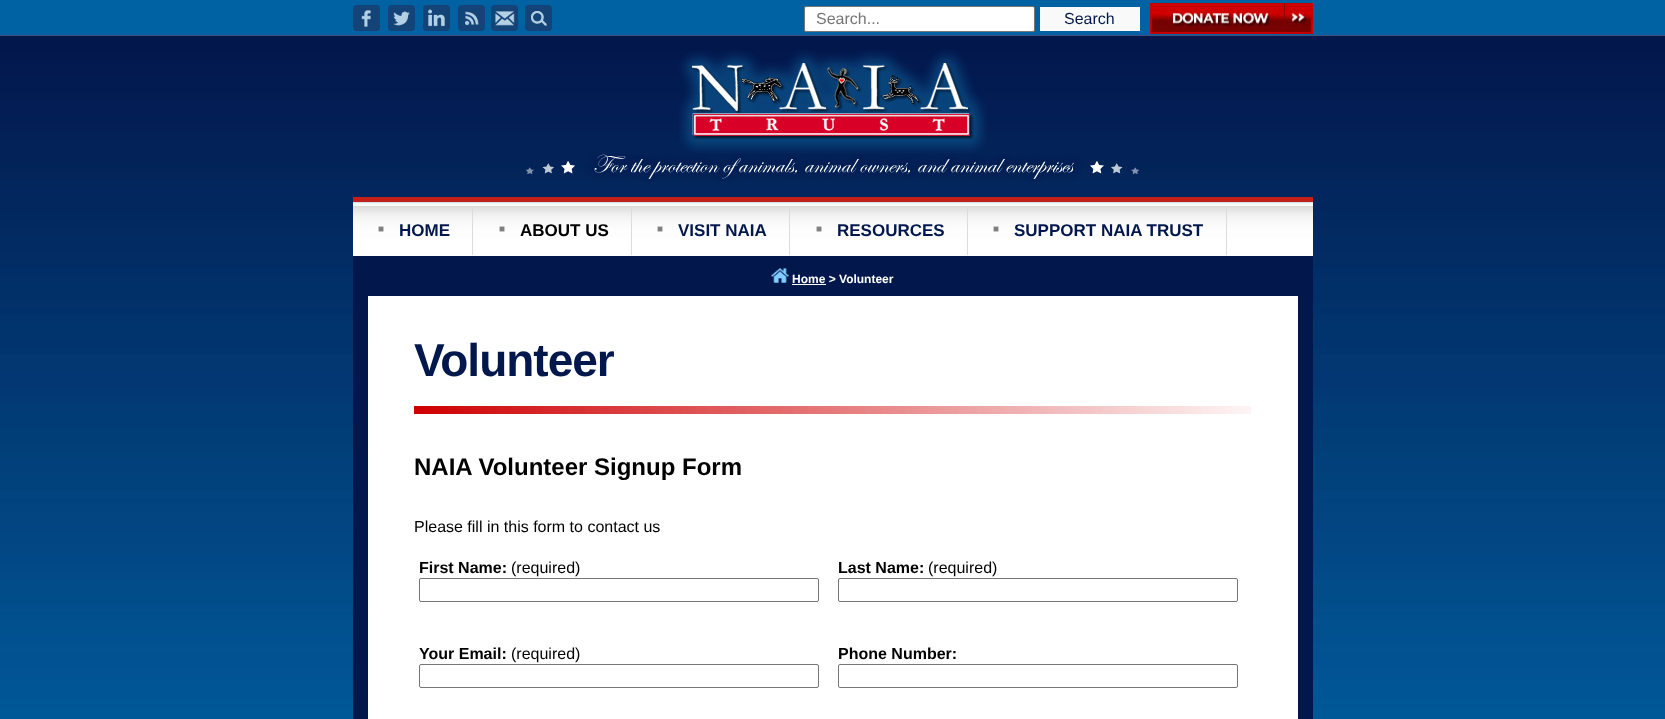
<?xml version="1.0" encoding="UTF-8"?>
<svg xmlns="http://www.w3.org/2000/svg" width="1665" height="719">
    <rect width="100%" height="100%" fill="#0062A3"/>
    <image x="353" y="5" width="199" height="26" href="img_01.png"/>
    <rect x="804.5" y="6.5" width="230" height="25" rx="1.5" fill="#FFFFFF" stroke="#767676"/>
    <text x="816" y="24" font-family="Liberation Sans" font-size="16" fill="#757575">Search...</text>
    <rect x="1040" y="7" width="100" height="24" fill="#F9F9F9"/>
    <text x="1064" y="24" font-family="Liberation Sans" font-size="16" fill="#02184D">Search</text>
    <image x="1150" y="3" width="163" height="31" href="img_02.png"/>
    <image x="0" y="35" width="1665" height="684" href="img_03.png"/>
    <image x="679" y="50" width="308" height="103" href="img_04.png"/>
    <image x="526" y="154" width="613" height="28" href="img_05.png"/>
    <image x="353" y="197" width="960" height="59" href="img_06.png"/>
    <rect x="472" y="207" width="1" height="48" fill="#DCDCDC"/>
    <text x="378" y="232" font-family="Liberation Sans" font-size="10" font-weight="700" fill="#808080">■</text>
    <text x="399" y="236" font-family="Liberation Sans" font-size="17" font-weight="700" fill="#02184D">HOME</text>
    <rect x="631" y="207" width="1" height="48" fill="#DCDCDC"/>
    <text x="499" y="232" font-family="Liberation Sans" font-size="10" font-weight="700" fill="#808080">■</text>
    <text x="520" y="236" font-family="Liberation Sans" font-size="17" font-weight="700" fill="#000000">ABOUT US</text>
    <rect x="789" y="207" width="1" height="48" fill="#DCDCDC"/>
    <text x="657" y="232" font-family="Liberation Sans" font-size="10" font-weight="700" fill="#808080">■</text>
    <text x="678" y="236" font-family="Liberation Sans" font-size="17" font-weight="700" fill="#02184D">VISIT NAIA</text>
    <rect x="967" y="207" width="1" height="48" fill="#DCDCDC"/>
    <text x="816" y="232" font-family="Liberation Sans" font-size="10" font-weight="700" fill="#808080">■</text>
    <text x="837" y="236" font-family="Liberation Sans" font-size="17" font-weight="700" fill="#02184D">RESOURCES</text>
    <rect x="1226" y="207" width="1" height="48" fill="#DCDCDC"/>
    <text x="993" y="232" font-family="Liberation Sans" font-size="10" font-weight="700" fill="#808080">■</text>
    <text x="1014" y="236" font-family="Liberation Sans" font-size="17" font-weight="700" fill="#02184D">SUPPORT NAIA TRUST</text>
    <rect x="353" y="256" width="960" height="463" fill="#02184D"/>
    <image x="771" y="268" width="18" height="15" href="img_07.png"/>
    <text x="792" y="283" font-family="Liberation Sans" font-size="12" font-weight="700" fill="#FFFFFF">Home &gt; Volunteer</text>
    <rect x="792" y="284" width="34" height="1" fill="#FFFFFF"/>
    <rect x="368" y="296" width="930" height="423" fill="#FFFFFF"/>
    <text x="414" y="376" font-family="Liberation Sans" font-size="46" font-weight="700" letter-spacing="-1" fill="#02184D">Volunteer</text>
    <image x="414" y="406" width="837" height="8" href="img_08.png"/>
    <text x="414" y="475" font-family="Liberation Sans" font-size="24" font-weight="700" fill="#000000">NAIA Volunteer Signup Form</text>
    <text x="414" y="532" font-family="Liberation Sans" font-size="16" fill="#000000">Please fill in this form to contact us</text>
    <text x="419" y="573" font-family="Liberation Sans" font-size="16" font-weight="700" fill="#000000">First Name:</text>
    <text x="511" y="573" font-family="Liberation Sans" font-size="16" fill="#000000">(required)</text>
    <rect x="419.5" y="578.5" width="399" height="23" rx="1.5" fill="none" stroke="#767676"/>
    <text x="838" y="573" font-family="Liberation Sans" font-size="16" font-weight="700" fill="#000000">Last Name:</text>
    <text x="928" y="573" font-family="Liberation Sans" font-size="16" fill="#000000">(required)</text>
    <rect x="838.5" y="578.5" width="399" height="23" rx="1.5" fill="none" stroke="#767676"/>
    <text x="419" y="659" font-family="Liberation Sans" font-size="16" font-weight="700" fill="#000000">Your Email:</text>
    <text x="511" y="659" font-family="Liberation Sans" font-size="16" fill="#000000">(required)</text>
    <rect x="419.5" y="664.5" width="399" height="23" rx="1.5" fill="none" stroke="#767676"/>
    <text x="838" y="659" font-family="Liberation Sans" font-size="16" font-weight="700" fill="#000000">Phone Number:</text>
    <rect x="838.5" y="664.5" width="399" height="23" rx="1.5" fill="none" stroke="#767676"/>
</svg>
